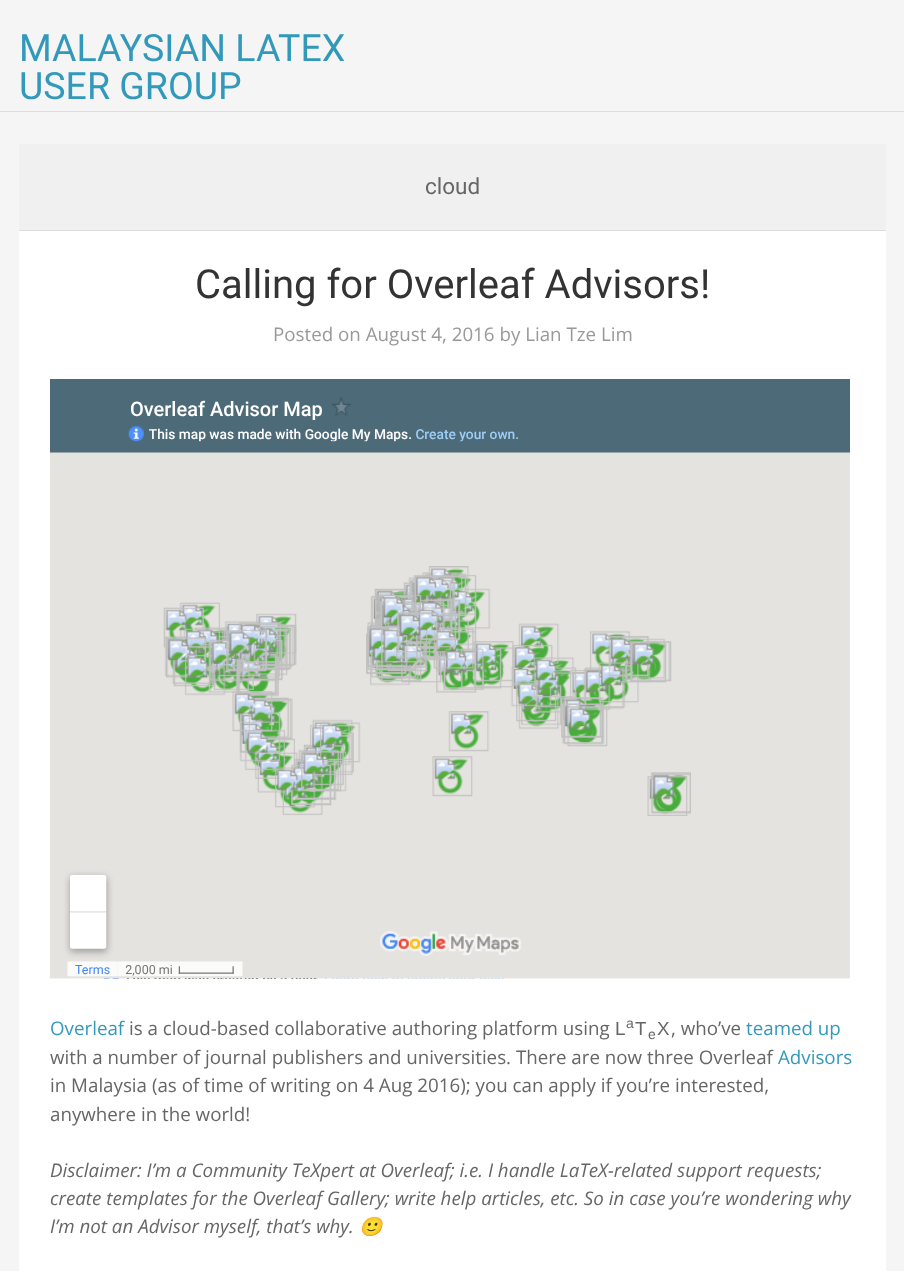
<?xml version="1.0" encoding="UTF-8"?>
<svg xmlns="http://www.w3.org/2000/svg" width="904" height="1271">
    <rect width="100%" height="100%" fill="#F5F5F5"/>
    <rect x="0" y="111" width="904" height="1" fill="#DDDDDD"/>
    <text font-family="Roboto" font-size="37.5" fill="#3299BB">
        <tspan x="19" y="61">MALAYSIAN LATEX</tspan>
        <tspan x="19" y="99">USER GROUP</tspan>
    </text>
    <rect x="19" y="144" width="867" height="86" fill="#F0F0F0"/>
    <rect x="19" y="230" width="867" height="1" fill="#DDDDDD"/>
    <text x="425" y="194" font-family="Roboto" font-size="22.5" fill="#666666">cloud</text>
    <rect x="19" y="231" width="867" height="1040" fill="#FFFFFF"/>
    <text x="195" y="298" font-family="Roboto" font-size="40" fill="#333333">Calling for Overleaf Advisors!</text>
    <text x="273" y="341" font-family="Open Sans" font-size="18.75" fill="#999999">Posted on August 4, 2016 by Lian Tze Lim</text>
    <image x="50" y="379" width="800" height="600" href="img_01.png"/>
    <text x="50" y="1035" font-family="Open Sans" font-size="18.75" fill="#3299BB">Overleaf</text>
    <text x="129" y="1035" font-family="Open Sans" font-size="18.75" fill="#666666">is a cloud-based collaborative authoring platform using</text>
    <text x="615" y="1035" font-family="Liberation Sans" font-size="18.75" letter-spacing="1" fill="#666666">L</text>
    <text x="626" y="1028" font-family="Liberation Sans" font-size="14" letter-spacing="1" fill="#666666">a</text>
    <text x="635" y="1035" font-family="Liberation Sans" font-size="18.75" letter-spacing="1" fill="#666666">T</text>
    <text x="648" y="1039" font-family="Liberation Sans" font-size="14" letter-spacing="1" fill="#666666">e</text>
    <text x="657" y="1035" font-family="Liberation Sans" font-size="18.75" letter-spacing="1" fill="#666666">X</text>
    <text x="671" y="1035" font-family="Open Sans" font-size="18.75" fill="#666666">, who’ve</text>
    <text x="746" y="1035" font-family="Open Sans" font-size="18.75" fill="#3299BB">teamed up</text>
    <text x="50" y="1064" font-family="Open Sans" font-size="18.75" fill="#666666">with a number of journal publishers and universities. There are now three Overleaf</text>
    <text x="778" y="1064" font-family="Open Sans" font-size="18.75" fill="#3299BB">Advisors</text>
    <text font-family="Open Sans" font-size="18.75" fill="#666666">
        <tspan x="50" y="1092">in Malaysia (as of time of writing on 4 Aug 2016); you can apply if you’re interested,</tspan>
        <tspan x="50" y="1121">anywhere in the world!</tspan>
    </text>
    <text font-family="Open Sans" font-size="18.75" font-style="italic" fill="#666666">
        <tspan x="50" y="1177">Disclaimer: I’m a Community TeXpert at Overleaf; i.e. I handle LaTeX-related support requests;</tspan>
        <tspan x="50" y="1205">create templates for the Overleaf Gallery; write help articles, etc. So in case you’re wondering why</tspan>
        <tspan x="50" y="1233">I’m not an Advisor myself, that’s why.</tspan>
    </text>
    <text x="359" y="1233" font-family="Noto Color Emoji" font-size="18.75" font-style="italic" fill="#666666">🙂</text>
</svg>
